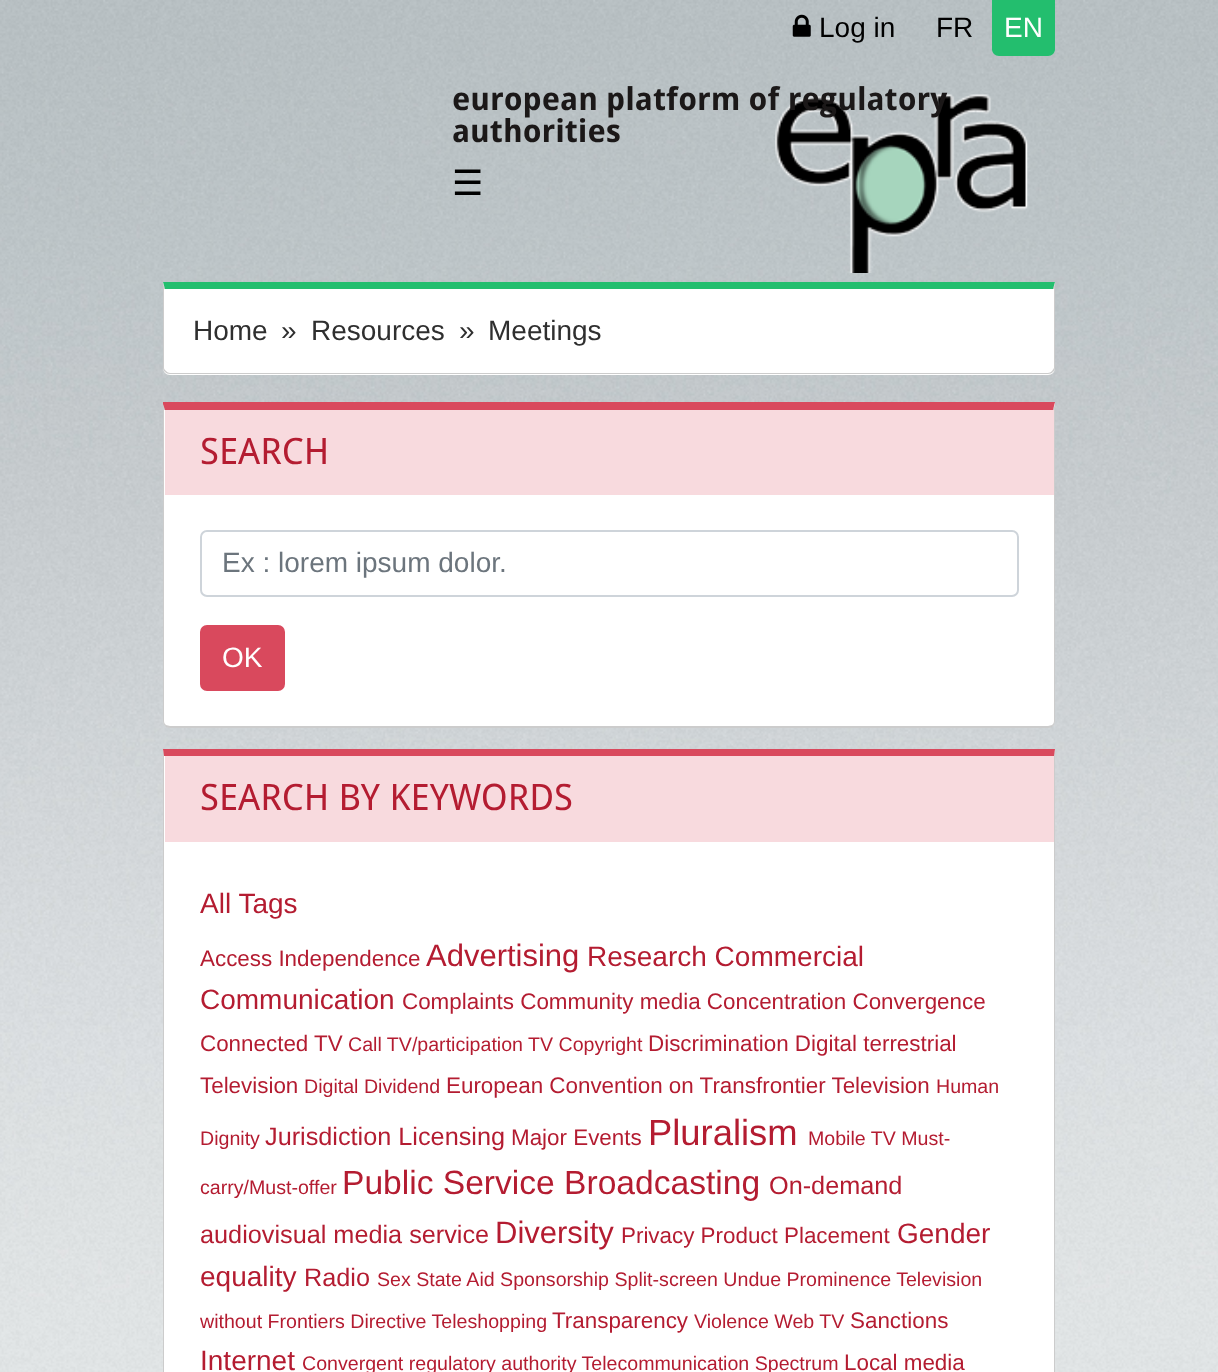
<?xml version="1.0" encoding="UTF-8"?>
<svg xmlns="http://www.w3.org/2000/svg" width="1218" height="1372">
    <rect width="100%" height="100%" fill="#FFFFFF"/>
    <image x="0" y="0" width="1218" height="1372" href="img_01.png"/>
    <image x="792" y="14" width="19" height="23" href="img_02.png"/>
    <text x="819" y="37" font-family="Liberation Sans" font-size="28" fill="#000000">Log in</text>
    <text x="936" y="37" font-family="Liberation Sans" font-size="28" fill="#000000">FR</text>
    <path d="M 992 0 H 1055 V 49 C 1055 53 1052 56 1048 56 H 999 C 995 56 992 53 992 49 Z" fill="#23BE6E"/>
    <text x="1004" y="37" font-family="Liberation Sans" font-size="28" fill="#FFFFFF">EN</text>
    <image x="775" y="94" width="253" height="179" href="img_03.png"/>
    <text font-family="Droid Sans" font-size="31.5" font-weight="700" fill="#1B1818">
        <tspan x="452" y="110">european platform of regulatory</tspan>
        <tspan x="452" y="142">authorities</tspan>
    </text>
    <text x="452" y="195" font-family="DejaVu Sans" font-size="35" fill="#000000">☰</text>
    <path d="M 163 282 H 1055 V 368 C 1055 372 1052 375 1048 375 H 170 C 166 375 163 372 163 368 Z" fill="#FFFFFF"/>
    <path d="M 163 282 L 165 289 H 1053 L 1055 282 Z" fill="#23BE6E"/>
    <path d="M 1055 283 V 368 C 1055 370 1054 371 1053 372 L 1052 371 L 1054 368 V 289 H 1053 Z" fill="#000000" fill-opacity="0.2"/>
    <path d="M 1053 372 C 1052 373 1050 374 1048 374 H 170 C 168 374 166 373 165 372 L 166 371 C 167 372 169 373 170 373 H 1048 C 1049 373 1051 372 1052 371 Z" fill="#000000" fill-opacity="0.2"/>
    <path d="M 164 289 H 165 L 163 283 V 368 C 163 370 164 371 165 372 L 166 371 C 165 370 164 369 164 368 Z" fill="#000000" fill-opacity="0.2"/>
    <text x="193" y="340" font-family="Liberation Sans" font-size="28" fill="#2F2F2F">Home</text>
    <text x="281" y="340" font-family="Liberation Sans" font-size="28" fill="#2F2F2F">»</text>
    <text x="311" y="340" font-family="Liberation Sans" font-size="28" fill="#2F2F2F">Resources</text>
    <text x="459" y="340" font-family="Liberation Sans" font-size="28" fill="#2F2F2F">»</text>
    <text x="488" y="340" font-family="Liberation Sans" font-size="28" fill="#2F2F2F">Meetings</text>
    <path d="M 163 403 H 1055 V 721 C 1055 725 1052 728 1048 728 H 170 C 166 728 163 725 163 721 Z" fill="#FFFFFF"/>
    <path d="M 163 404 V 402 H 1055 L 1053 410 H 165 Z" fill="#D9495D"/>
    <path d="M 1055 404 V 721 C 1055 723 1054 725 1053 726 L 1052 725 C 1053 724 1054 723 1054 721 V 410 H 1053 Z" fill="#000000" fill-opacity="0.2"/>
    <path d="M 170 728 H 1048 C 1050 728 1052 727 1053 726 L 1052 725 L 1048 726 H 170 L 166 725 L 165 726 C 166 727 168 728 170 728 Z" fill="#000000" fill-opacity="0.2"/>
    <path d="M 164 410 V 721 C 164 723 165 724 166 725 L 165 726 C 164 725 163 723 163 721 V 404 L 165 410 Z" fill="#000000" fill-opacity="0.2"/>
    <rect x="165" y="410" width="889" height="85" fill="#F8DADE"/>
    <text x="200" y="464" font-family="Droid Sans" font-size="36.4" fill="#B41C31">SEARCH</text>
    <rect x="201" y="531" width="817" height="65" rx="6" fill="none" stroke="#CED4DA" stroke-width="2"/>
    <text x="222" y="572" font-family="Liberation Sans" font-size="28" fill="#6C757D">Ex : lorem ipsum dolor.</text>
    <rect x="201" y="626" width="83" height="64" rx="6" fill="#D9495D" stroke="#D9495D" stroke-width="2"/>
    <text x="222" y="667" font-family="Liberation Sans" font-size="28" fill="#FFFFFF">OK</text>
    <rect x="163" y="749" width="892" height="623" fill="#FFFFFF"/>
    <path d="M 163 749 L 164 756 H 1054 L 1055 749 Z" fill="#D9495D"/>
    <path d="M 1055 750 V 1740 C 1055 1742 1054 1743 1053 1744 L 1052 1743 C 1053 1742 1054 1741 1054 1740 V 756 Z" fill="#000000" fill-opacity="0.2"/>
    <path d="M 164 756 L 163 750 V 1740 C 163 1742 164 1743 165 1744 L 166 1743 C 165 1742 164 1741 164 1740 Z" fill="#000000" fill-opacity="0.2"/>
    <rect x="165" y="756" width="889" height="86" fill="#F8DADE"/>
    <text x="200" y="810" font-family="Droid Sans" font-size="36.4" fill="#B41C31">SEARCH BY KEYWORDS</text>
    <text x="200" y="913" font-family="Liberation Sans" font-size="28" fill="#B41C31">All Tags</text>
    <text x="200" y="966" font-family="Liberation Sans" font-size="22.4" fill="#B41C31">Access Independence</text>
    <text x="426" y="966" font-family="Liberation Sans" font-size="31" fill="#B41C31">Advertising</text>
    <text x="587" y="966" font-family="Liberation Sans" font-size="28" fill="#B41C31">Research Commercial</text>
    <text x="200" y="1009" font-family="Liberation Sans" font-size="28" fill="#B41C31">Communication</text>
    <text x="402" y="1009" font-family="Liberation Sans" font-size="22.4" fill="#B41C31">Complaints Community media Concentration Convergence</text>
    <text x="200" y="1051" font-family="Liberation Sans" font-size="22.4" fill="#B41C31">Connected TV</text>
    <text x="348" y="1051" font-family="Liberation Sans" font-size="19.6" fill="#B41C31">Call TV/participation TV Copyright</text>
    <text x="648" y="1051" font-family="Liberation Sans" font-size="22.4" fill="#B41C31">Discrimination Digital terrestrial</text>
    <text x="200" y="1093" font-family="Liberation Sans" font-size="22.4" fill="#B41C31">Television</text>
    <text x="304" y="1093" font-family="Liberation Sans" font-size="19.6" fill="#B41C31">Digital Dividend</text>
    <text x="446" y="1093" font-family="Liberation Sans" font-size="22.4" fill="#B41C31">European Convention on Transfrontier Television</text>
    <text x="936" y="1093" font-family="Liberation Sans" font-size="19.6" fill="#B41C31">Human</text>
    <text x="200" y="1145" font-family="Liberation Sans" font-size="19.6" fill="#B41C31">Dignity</text>
    <text x="265" y="1145" font-family="Liberation Sans" font-size="25.25" fill="#B41C31">Jurisdiction Licensing</text>
    <text x="511" y="1145" font-family="Liberation Sans" font-size="22.4" fill="#B41C31">Major Events</text>
    <text x="648" y="1145" font-family="Liberation Sans" font-size="36.4" fill="#B41C31">Pluralism</text>
    <text x="808" y="1145" font-family="Liberation Sans" font-size="19.6" fill="#B41C31">Mobile TV Must-</text>
    <text x="200" y="1194" font-family="Liberation Sans" font-size="19.6" fill="#B41C31">carry/Must-offer</text>
    <text x="342" y="1194" font-family="Liberation Sans" font-size="33.6" fill="#B41C31">Public Service Broadcasting</text>
    <text x="769" y="1194" font-family="Liberation Sans" font-size="25.25" fill="#B41C31">On-demand</text>
    <text x="200" y="1243" font-family="Liberation Sans" font-size="25.25" fill="#B41C31">audiovisual media service</text>
    <text x="495" y="1243" font-family="Liberation Sans" font-size="31" fill="#B41C31">Diversity</text>
    <text x="621" y="1243" font-family="Liberation Sans" font-size="22.4" fill="#B41C31">Privacy Product Placement</text>
    <text x="897" y="1243" font-family="Liberation Sans" font-size="28" fill="#B41C31">Gender</text>
    <text x="200" y="1286" font-family="Liberation Sans" font-size="28" fill="#B41C31">equality</text>
    <text x="304" y="1286" font-family="Liberation Sans" font-size="25.25" fill="#B41C31">Radio</text>
    <text x="377" y="1286" font-family="Liberation Sans" font-size="19.6" fill="#B41C31">Sex State Aid Sponsorship Split-screen Undue Prominence Television</text>
    <text x="200" y="1328" font-family="Liberation Sans" font-size="19.6" fill="#B41C31">without Frontiers Directive Teleshopping</text>
    <text x="552" y="1328" font-family="Liberation Sans" font-size="22.4" fill="#B41C31">Transparency</text>
    <text x="694" y="1328" font-family="Liberation Sans" font-size="19.6" fill="#B41C31">Violence Web TV</text>
    <text x="850" y="1328" font-family="Liberation Sans" font-size="22.4" fill="#B41C31">Sanctions</text>
    <text x="200" y="1370" font-family="Liberation Sans" font-size="28" fill="#B41C31">Internet</text>
    <text x="302" y="1370" font-family="Liberation Sans" font-size="19.6" fill="#B41C31">Convergent regulatory authority Telecommunication Spectrum</text>
    <text x="844" y="1370" font-family="Liberation Sans" font-size="22.4" fill="#B41C31">Local media</text>
</svg>
